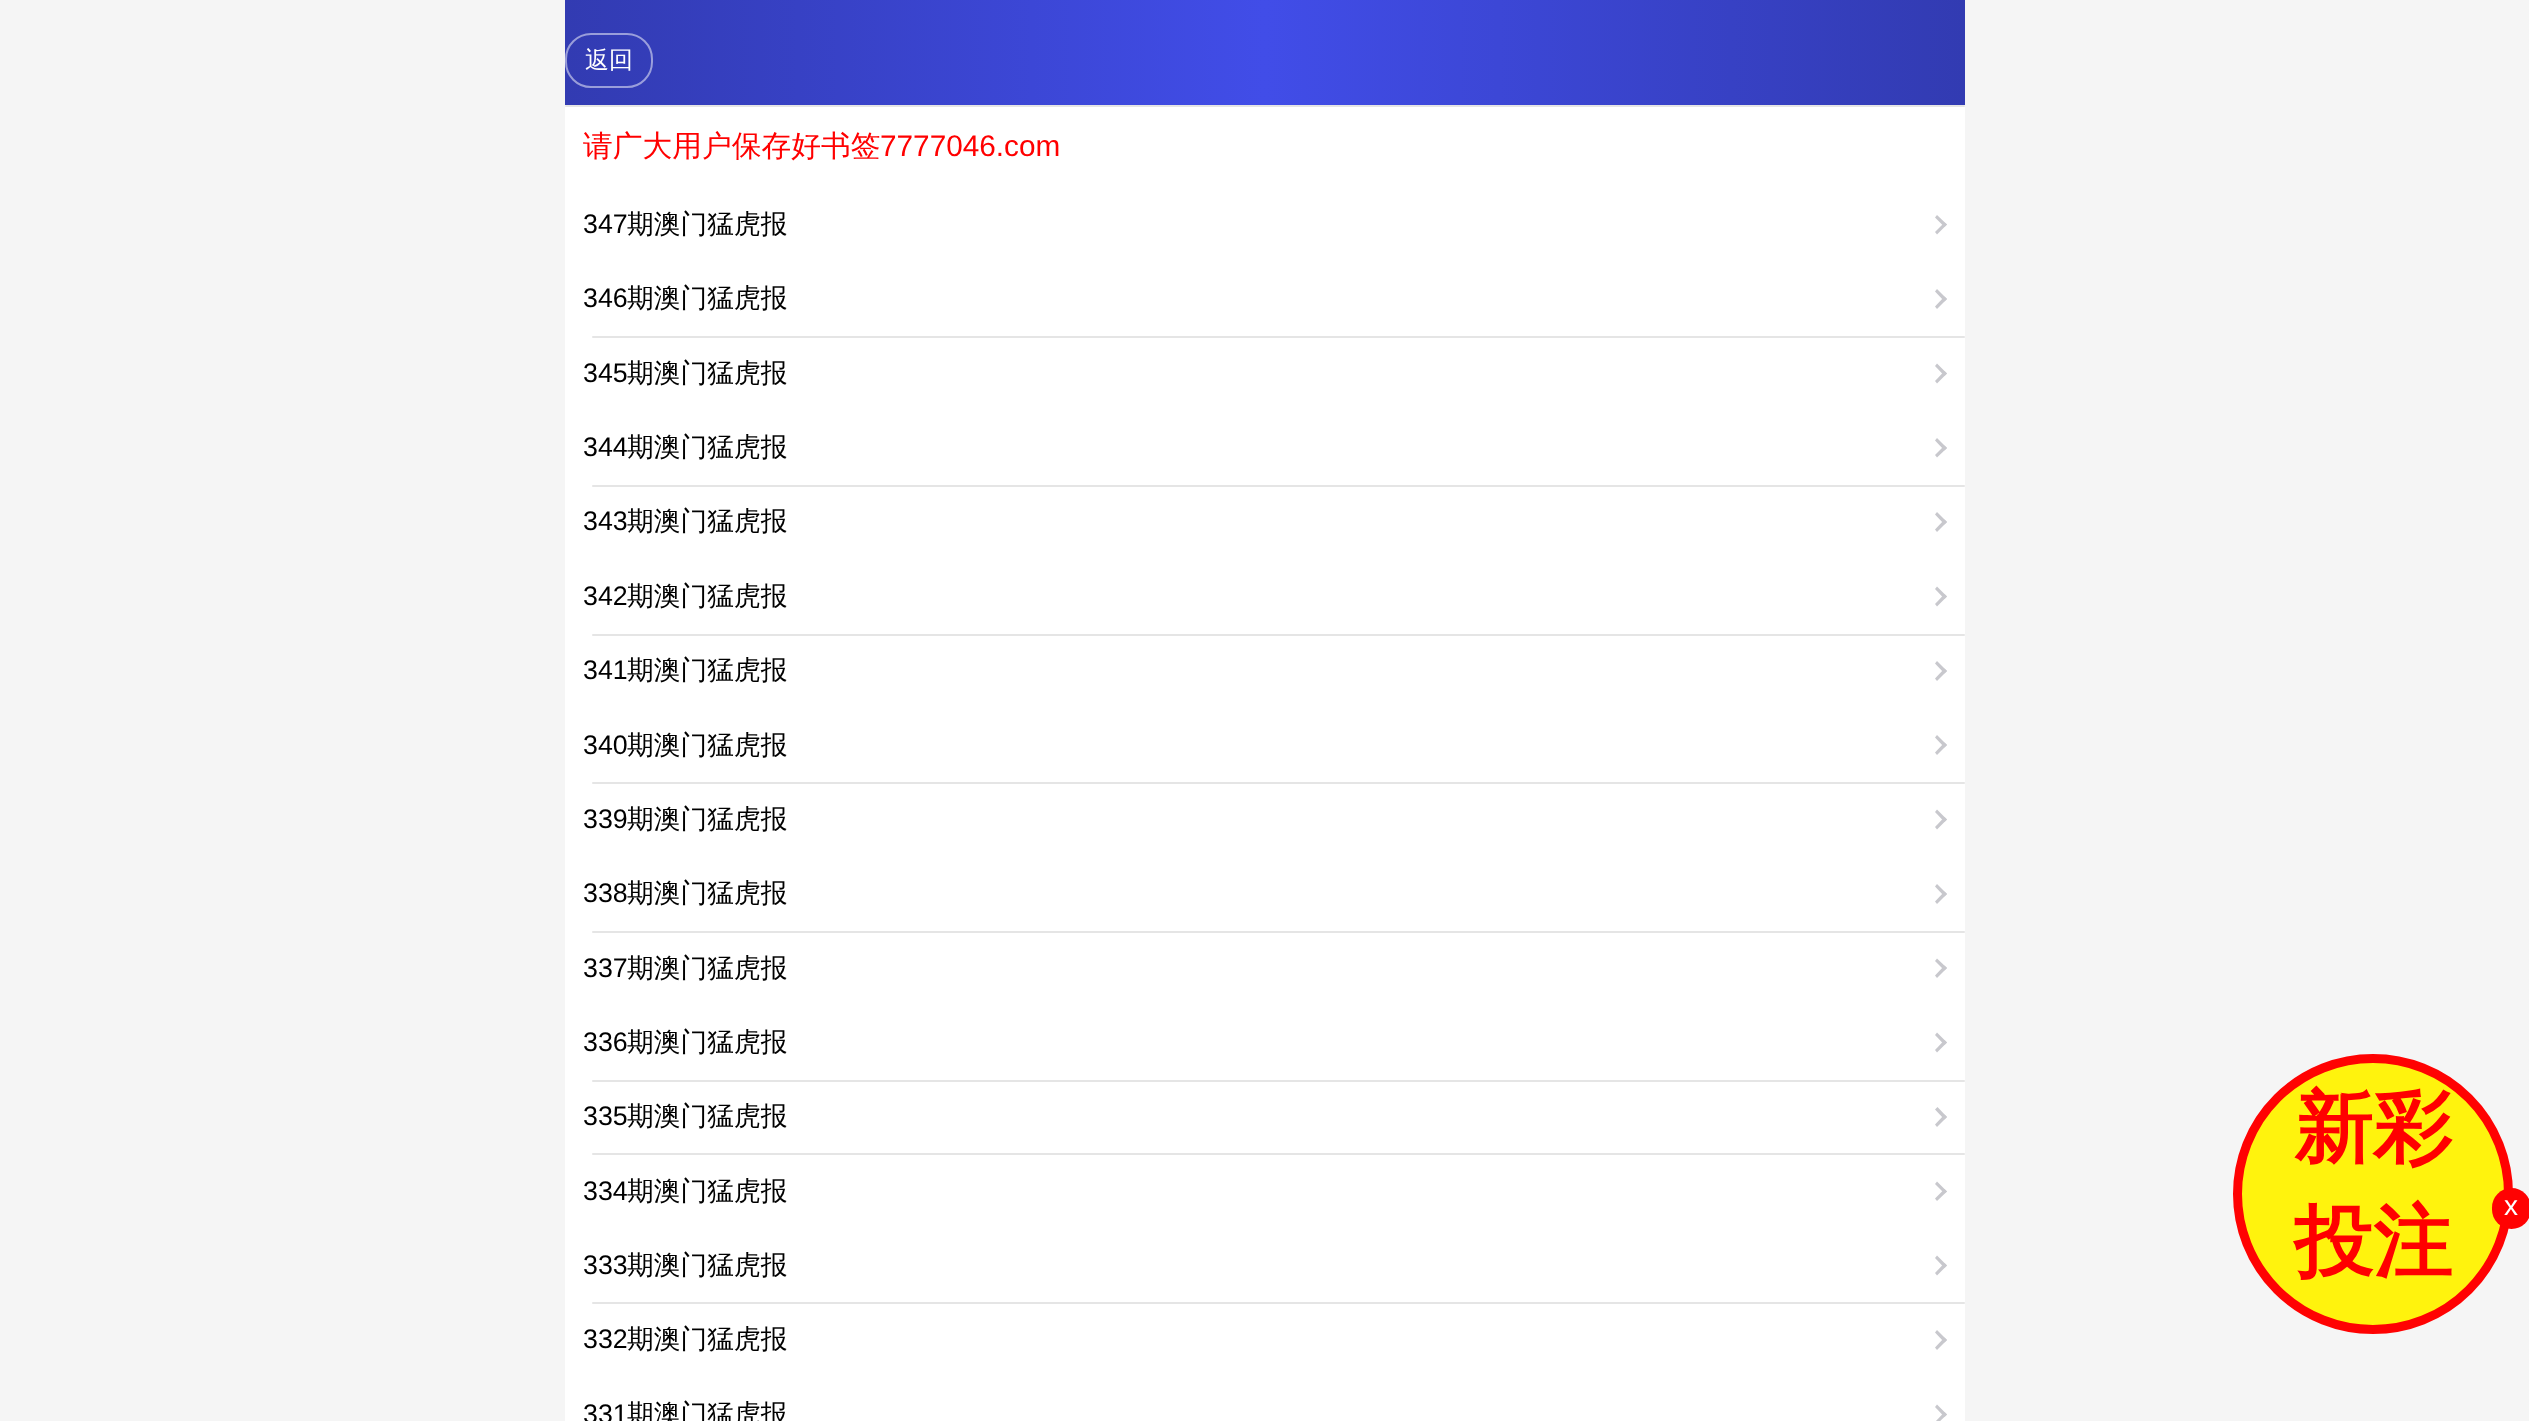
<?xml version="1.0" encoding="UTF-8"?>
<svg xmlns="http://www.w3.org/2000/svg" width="2529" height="1421">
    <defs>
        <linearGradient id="g1" gradientUnits="userSpaceOnUse" x1="565" y1="53" x2="1965" y2="52"><stop offset="0" stop-color="#323BB2"/><stop offset="0.5" stop-color="#414DE8"/><stop offset="1" stop-color="#323BB2"/></linearGradient>
    </defs>
    <rect width="100%" height="100%" fill="#F5F5F5"/>
    <rect x="565" y="0" width="1400" height="105" fill="url(#g1)"/>
    <rect x="566" y="34" width="86" height="53" rx="25" fill="none" stroke="#FFFFFF" stroke-opacity="0.5" stroke-width="2"/>
    <text x="585" y="68" font-family="WenQuanYi Zen Hei" font-size="24" font-weight="500" fill="#FFFFFF">返回</text>
    <rect x="565" y="105" width="1400" height="1316" fill="#FFFFFF"/>
    <rect x="565" y="105" width="1400" height="2" rx="1" fill="#E5E5E5"/>
    <text x="583" y="156" font-family="WenQuanYi Zen Hei" font-size="29.75" font-weight="500" fill="#FF0000">请广大用户保存好书签</text>
    <text x="880" y="156" font-family="Liberation Sans" font-size="29.75" fill="#FF0000">7777046.com</text>
    <text x="583" y="233" font-family="Liberation Sans" font-size="26.75" fill="#000000">347</text>
    <text x="627" y="233" font-family="WenQuanYi Zen Hei" font-size="26.75" font-weight="500" fill="#000000">期澳门猛虎报</text>
    <path d="M 1937 215 L 1947 224.5 L 1944.5 227 L 1935 217.5 Z" fill="#C8C8CD"/>
    <path d="M 1944.5 222.5 L 1947 224.5 L 1937 234.5 L 1935 232 Z" fill="#C8C8CD"/>
    <text x="583" y="307" font-family="Liberation Sans" font-size="26.75" fill="#000000">346</text>
    <text x="627" y="307" font-family="WenQuanYi Zen Hei" font-size="26.75" font-weight="500" fill="#000000">期澳门猛虎报</text>
    <path d="M 1937 289 L 1947 299 L 1944.5 301.5 L 1935 291.5 Z" fill="#C8C8CD"/>
    <path d="M 1944.5 296.5 L 1947 299 L 1937 309 L 1935 306.5 Z" fill="#C8C8CD"/>
    <rect x="592" y="336" width="1373" height="2" rx="1" fill="#E5E5E5"/>
    <text x="583" y="382" font-family="Liberation Sans" font-size="26.75" fill="#000000">345</text>
    <text x="627" y="382" font-family="WenQuanYi Zen Hei" font-size="26.75" font-weight="500" fill="#000000">期澳门猛虎报</text>
    <path d="M 1937 363.5 L 1947 373.5 L 1944.5 376 L 1935 366 Z" fill="#C8C8CD"/>
    <path d="M 1944.5 371 L 1947 373.5 L 1937 383.5 L 1935 381 Z" fill="#C8C8CD"/>
    <text x="583" y="456" font-family="Liberation Sans" font-size="26.75" fill="#000000">344</text>
    <text x="627" y="456" font-family="WenQuanYi Zen Hei" font-size="26.75" font-weight="500" fill="#000000">期澳门猛虎报</text>
    <path d="M 1937 438 L 1947 448 L 1944.5 450.5 L 1935 440.5 Z" fill="#C8C8CD"/>
    <path d="M 1944.5 445.5 L 1947 448 L 1937 457.5 L 1935 455 Z" fill="#C8C8CD"/>
    <rect x="592" y="485" width="1373" height="2" rx="1" fill="#E5E5E5"/>
    <text x="583" y="530" font-family="Liberation Sans" font-size="26.75" fill="#000000">343</text>
    <text x="627" y="530" font-family="WenQuanYi Zen Hei" font-size="26.75" font-weight="500" fill="#000000">期澳门猛虎报</text>
    <path d="M 1937 512 L 1947 522 L 1944.5 524.5 L 1935 514.5 Z" fill="#C8C8CD"/>
    <path d="M 1944.5 519.5 L 1947 522 L 1937 532 L 1935 529.5 Z" fill="#C8C8CD"/>
    <text x="583" y="605" font-family="Liberation Sans" font-size="26.75" fill="#000000">342</text>
    <text x="627" y="605" font-family="WenQuanYi Zen Hei" font-size="26.75" font-weight="500" fill="#000000">期澳门猛虎报</text>
    <path d="M 1937 586.5 L 1947 596.5 L 1944.5 599 L 1935 589 Z" fill="#C8C8CD"/>
    <path d="M 1944.5 594 L 1947 596.5 L 1937 606.5 L 1935 604 Z" fill="#C8C8CD"/>
    <rect x="592" y="634" width="1373" height="2" rx="1" fill="#E5E5E5"/>
    <text x="583" y="679" font-family="Liberation Sans" font-size="26.75" fill="#000000">341</text>
    <text x="627" y="679" font-family="WenQuanYi Zen Hei" font-size="26.75" font-weight="500" fill="#000000">期澳门猛虎报</text>
    <path d="M 1937 661 L 1947 671 L 1944.5 673.5 L 1935 663.5 Z" fill="#C8C8CD"/>
    <path d="M 1944.5 668.5 L 1947 671 L 1937 681 L 1935 678.5 Z" fill="#C8C8CD"/>
    <text x="583" y="754" font-family="Liberation Sans" font-size="26.75" fill="#000000">340</text>
    <text x="627" y="754" font-family="WenQuanYi Zen Hei" font-size="26.75" font-weight="500" fill="#000000">期澳门猛虎报</text>
    <path d="M 1937 735 L 1947 745 L 1944.5 747.5 L 1935 737.5 Z" fill="#C8C8CD"/>
    <path d="M 1944.5 742.5 L 1947 745 L 1937 755 L 1935 752.5 Z" fill="#C8C8CD"/>
    <rect x="592" y="782" width="1373" height="2" rx="1" fill="#E5E5E5"/>
    <text x="583" y="828" font-family="Liberation Sans" font-size="26.75" fill="#000000">339</text>
    <text x="627" y="828" font-family="WenQuanYi Zen Hei" font-size="26.75" font-weight="500" fill="#000000">期澳门猛虎报</text>
    <path d="M 1937 809.5 L 1947 819.5 L 1944.5 822 L 1935 812 Z" fill="#C8C8CD"/>
    <path d="M 1944.5 817 L 1947 819.5 L 1937 829.5 L 1935 827 Z" fill="#C8C8CD"/>
    <text x="583" y="902" font-family="Liberation Sans" font-size="26.75" fill="#000000">338</text>
    <text x="627" y="902" font-family="WenQuanYi Zen Hei" font-size="26.75" font-weight="500" fill="#000000">期澳门猛虎报</text>
    <path d="M 1937 884 L 1947 894 L 1944.5 896.5 L 1935 886.5 Z" fill="#C8C8CD"/>
    <path d="M 1944.5 891.5 L 1947 894 L 1937 904 L 1935 901.5 Z" fill="#C8C8CD"/>
    <rect x="592" y="931" width="1373" height="2" rx="1" fill="#E5E5E5"/>
    <text x="583" y="977" font-family="Liberation Sans" font-size="26.75" fill="#000000">337</text>
    <text x="627" y="977" font-family="WenQuanYi Zen Hei" font-size="26.75" font-weight="500" fill="#000000">期澳门猛虎报</text>
    <path d="M 1937 958.5 L 1947 968 L 1944.5 970.5 L 1935 961 Z" fill="#C8C8CD"/>
    <path d="M 1944.5 965.5 L 1947 968 L 1937 978 L 1935 975.5 Z" fill="#C8C8CD"/>
    <text x="583" y="1051" font-family="Liberation Sans" font-size="26.75" fill="#000000">336</text>
    <text x="627" y="1051" font-family="WenQuanYi Zen Hei" font-size="26.75" font-weight="500" fill="#000000">期澳门猛虎报</text>
    <path d="M 1937 1032.5 L 1947 1042.5 L 1944.5 1045 L 1935 1035 Z" fill="#C8C8CD"/>
    <path d="M 1944.5 1040 L 1947 1042.5 L 1937 1052.5 L 1935 1050 Z" fill="#C8C8CD"/>
    <rect x="592" y="1080" width="1373" height="2" rx="1" fill="#E5E5E5"/>
    <text x="583" y="1125" font-family="Liberation Sans" font-size="26.75" fill="#000000">335</text>
    <text x="627" y="1125" font-family="WenQuanYi Zen Hei" font-size="26.75" font-weight="500" fill="#000000">期澳门猛虎报</text>
    <path d="M 1937.5 1107 L 1947 1117 L 1944.5 1119.5 L 1935 1109.5 Z" fill="#C8C8CD"/>
    <path d="M 1944.5 1114.5 L 1947 1117 L 1937 1127 L 1935 1124.5 Z" fill="#C8C8CD"/>
    <rect x="592" y="1153" width="1373" height="2" rx="1" fill="#E5E5E5"/>
    <text x="583" y="1200" font-family="Liberation Sans" font-size="26.75" fill="#000000">334</text>
    <text x="627" y="1200" font-family="WenQuanYi Zen Hei" font-size="26.75" font-weight="500" fill="#000000">期澳门猛虎报</text>
    <path d="M 1937 1181.5 L 1947 1191.5 L 1944.5 1193.5 L 1935 1184 Z" fill="#C8C8CD"/>
    <path d="M 1944.5 1189 L 1947 1191.5 L 1937 1201 L 1935 1198.5 Z" fill="#C8C8CD"/>
    <text x="583" y="1274" font-family="Liberation Sans" font-size="26.75" fill="#000000">333</text>
    <text x="627" y="1274" font-family="WenQuanYi Zen Hei" font-size="26.75" font-weight="500" fill="#000000">期澳门猛虎报</text>
    <path d="M 1937 1255.5 L 1947 1265.5 L 1944.5 1268 L 1935 1258 Z" fill="#C8C8CD"/>
    <path d="M 1944.5 1263 L 1947 1265.5 L 1937 1275.5 L 1935 1273 Z" fill="#C8C8CD"/>
    <rect x="592" y="1302" width="1373" height="2" rx="1" fill="#E5E5E5"/>
    <text x="583" y="1348" font-family="Liberation Sans" font-size="26.75" fill="#000000">332</text>
    <text x="627" y="1348" font-family="WenQuanYi Zen Hei" font-size="26.75" font-weight="500" fill="#000000">期澳门猛虎报</text>
    <path d="M 1937 1330 L 1947 1340 L 1944.5 1342.5 L 1935 1332.5 Z" fill="#C8C8CD"/>
    <path d="M 1944.5 1337.5 L 1947 1340 L 1937 1350 L 1935 1347.5 Z" fill="#C8C8CD"/>
    <text x="583" y="1423" font-family="Liberation Sans" font-size="26.75" fill="#000000">331</text>
    <text x="627" y="1423" font-family="WenQuanYi Zen Hei" font-size="26.75" font-weight="500" fill="#000000">期澳门猛虎报</text>
    <path d="M 1937 1404.5 L 1947 1414.5 L 1944.5 1417 L 1935 1407 Z" fill="#C8C8CD"/>
    <path d="M 1944.5 1412 L 1947 1414.5 L 1937 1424 L 1935 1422 Z" fill="#C8C8CD"/>
    <circle cx="2373" cy="1194" r="135.5" fill="#FFF30D" stroke="#FF0202" stroke-width="9"/>
    <text font-family="WenQuanYi Zen Hei" font-size="79" font-weight="700" fill="#FF0000">
        <tspan x="2294" y="1155">新彩</tspan>
        <tspan x="2294" y="1269">投注</tspan>
    </text>
    <rect x="2492" y="1188" width="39" height="41" rx="19.5" fill="#FF0202"/>
    <text x="2504" y="1215" font-family="Liberation Sans" font-size="28" fill="#FFFFFF">x</text>
</svg>
